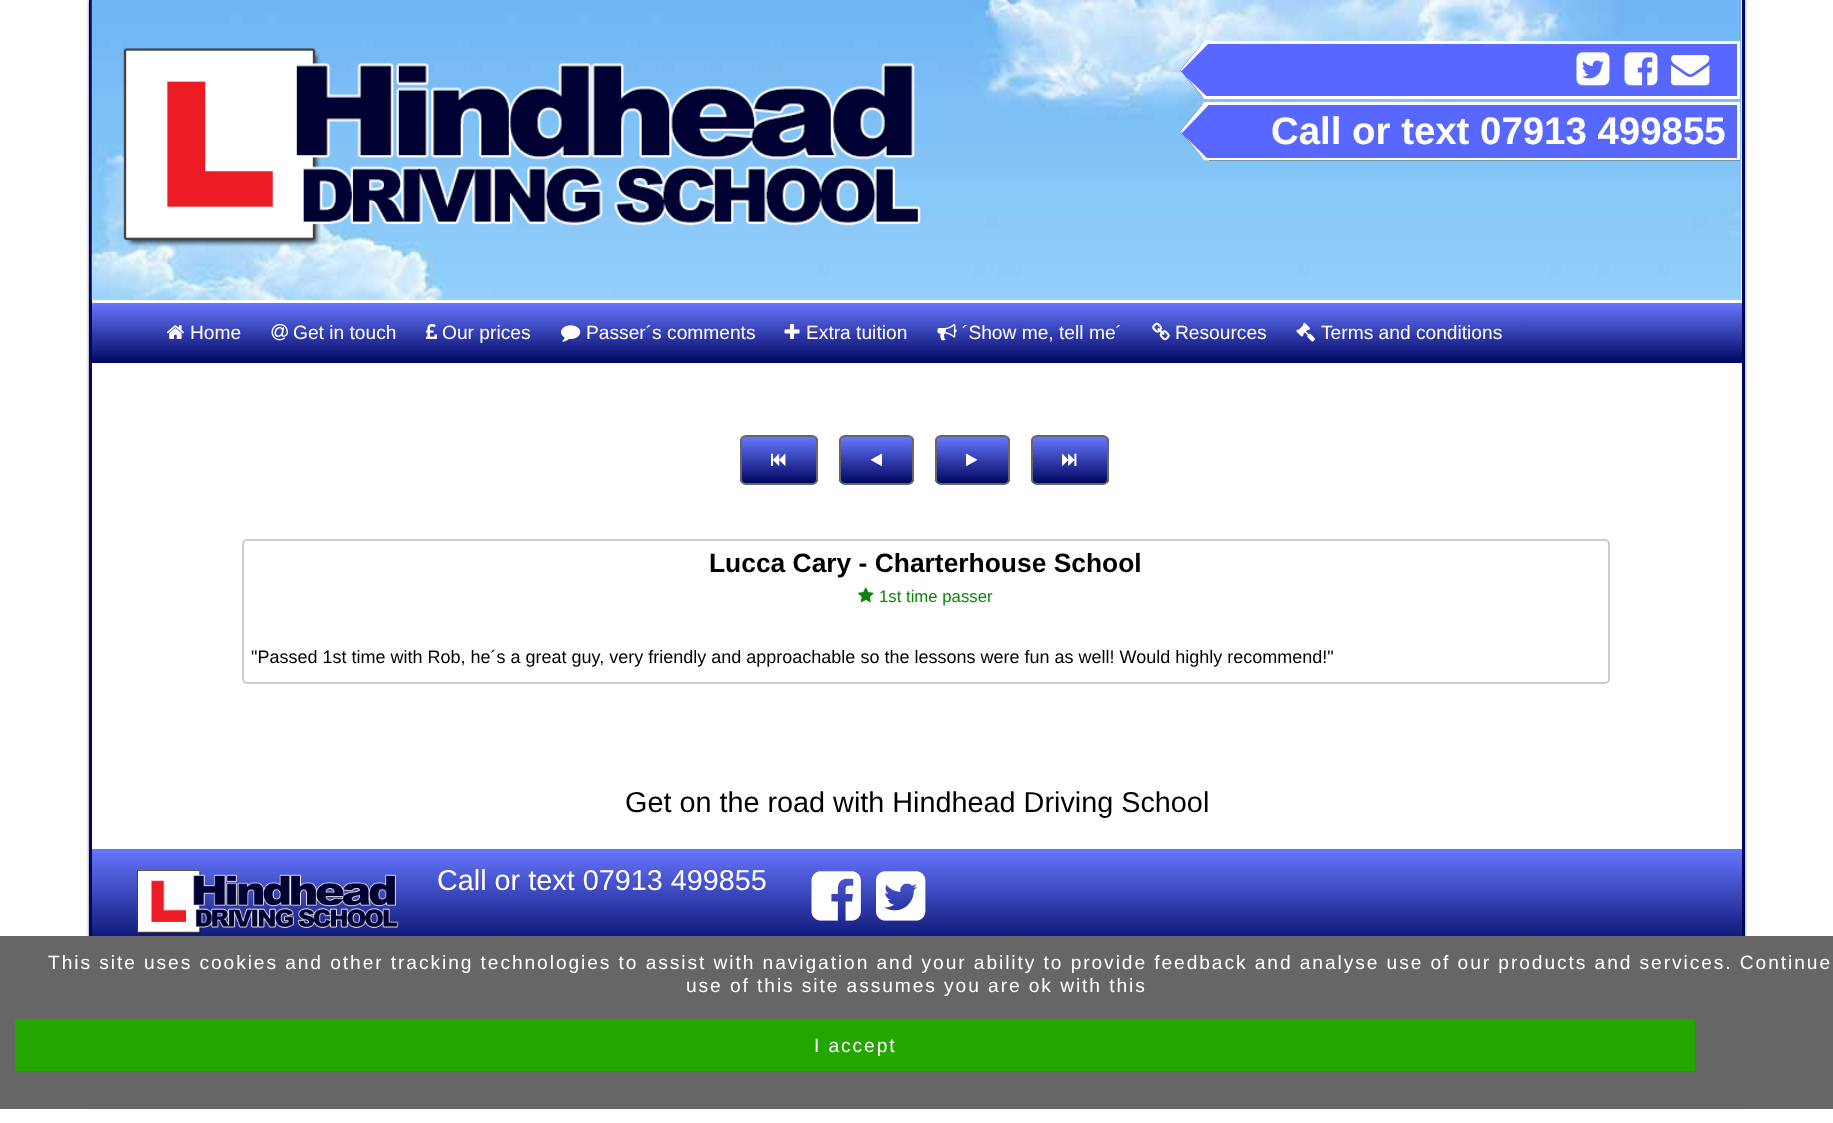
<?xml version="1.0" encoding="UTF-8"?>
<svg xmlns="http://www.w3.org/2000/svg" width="1833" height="1123">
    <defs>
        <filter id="blur1" x="-50%" y="-200%" width="200%" height="500%"><feGaussianBlur stdDeviation="1.5"/></filter>
        <clipPath id="clip1"><path d="M 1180.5 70 L 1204.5 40.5 H 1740 V 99 H 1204.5 Z"/></clipPath>
        <clipPath id="clip2"><rect x="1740" y="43" width="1" height="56"/></clipPath>
        <clipPath id="clip3"><path d="M 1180.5 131 L 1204.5 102 H 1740 V 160.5 H 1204.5 Z"/></clipPath>
        <clipPath id="clip4"><path d="M 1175 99 H 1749 V 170 H 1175 Z M 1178 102 H 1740 V 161 H 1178 Z" clip-rule="evenodd"/></clipPath>
        <linearGradient id="g1" gradientUnits="userSpaceOnUse" x1="917" y1="303" x2="917" y2="363"><stop offset="0" stop-color="#6676FF"/><stop offset="1" stop-color="#000760"/></linearGradient>
        <clipPath id="clip5"><rect x="740" y="435" width="78" height="50" rx="6"/></clipPath>
        <linearGradient id="g2" gradientUnits="userSpaceOnUse" x1="779" y1="437" x2="779" y2="483"><stop offset="0" stop-color="#6676FF"/><stop offset="1" stop-color="#000760"/></linearGradient>
        <clipPath id="clip6"><rect x="839" y="435" width="75" height="50" rx="6"/></clipPath>
        <linearGradient id="g3" gradientUnits="userSpaceOnUse" x1="876" y1="437" x2="876" y2="483"><stop offset="0" stop-color="#6676FF"/><stop offset="1" stop-color="#000760"/></linearGradient>
        <clipPath id="clip7"><rect x="935" y="435" width="75" height="50" rx="6"/></clipPath>
        <linearGradient id="g4" gradientUnits="userSpaceOnUse" x1="972" y1="437" x2="972" y2="483"><stop offset="0" stop-color="#6676FF"/><stop offset="1" stop-color="#000760"/></linearGradient>
        <clipPath id="clip8"><rect x="1031" y="435" width="78" height="50" rx="6"/></clipPath>
        <linearGradient id="g5" gradientUnits="userSpaceOnUse" x1="1070" y1="437" x2="1070" y2="483"><stop offset="0" stop-color="#6676FF"/><stop offset="1" stop-color="#000760"/></linearGradient>
        <linearGradient id="g6" gradientUnits="userSpaceOnUse" x1="932" y1="849" x2="932" y2="954"><stop offset="0" stop-color="#6676FF"/><stop offset="1" stop-color="#000760"/></linearGradient>
    </defs>
    <rect width="100%" height="100%" fill="#FFFFFF"/>
    <rect x="89" y="0" width="1656" height="1107" fill="#666666" filter="url(#blur1)"/>
    <rect x="92" y="0" width="1650" height="849" fill="#FFFFFF"/>
    <rect x="1742" y="0" width="3" height="936" fill="#000760"/>
    <rect x="89" y="0" width="3" height="936" fill="#000760"/>
    <image x="91" y="0" width="1651" height="300" href="img_01.png"/>
    <image x="123" y="48" width="798" height="199" href="img_02.png"/>
    <g clip-path="url(#clip1)">
        <rect x="1178" y="44" width="565" height="58" fill="#666666" filter="url(#blur1)"/>
    </g>
    <path d="M 1180 70 L 1204 99 H 1740 V 41 H 1204 Z" fill="#5867FF"/>
    <g clip-path="url(#clip1)">
        <g clip-path="url(#clip2)">
            <rect x="1181" y="44" width="562" height="58" fill="#666666" filter="url(#blur1)"/>
        </g>
    </g>
    <path d="M 1180 70 H 1181 V 69 Z M 1202 44 H 1737 V 96 H 1202 L 1204 99 H 1740 V 41 H 1204 Z" fill="#FFFFFF" fill-rule="evenodd"/>
    <image x="1576" y="52" width="34" height="34" href="img_03.png"/>
    <image x="1624" y="52" width="34" height="34" href="img_04.png"/>
    <image x="1671" y="55" width="39" height="31" href="img_05.png"/>
    <path d="M 1209.5 99 H 1204.5 L 1186.5 77 Z M 1180.5 70 L 1204.5 40.5 H 1211.5 L 1181.5 71 Z" fill="#FFFFFF"/>
    <g clip-path="url(#clip3)">
        <rect x="1178" y="105" width="565" height="59" fill="#666666" filter="url(#blur1)"/>
    </g>
    <path d="M 1180 131 L 1204 160 H 1740 V 102 H 1204 Z" fill="#5867FF"/>
    <g clip-path="url(#clip3)">
        <g clip-path="url(#clip4)">
            <rect x="1181" y="105" width="562" height="59" fill="#666666" filter="url(#blur1)"/>
        </g>
    </g>
    <path d="M 1740 102 H 1204 L 1202 105 H 1737 V 158 H 1202 L 1204 160 H 1740 Z M 1180 131 L 1181 132 V 131 Z" fill="#FFFFFF" fill-rule="evenodd"/>
    <path d="M 1209.5 160.5 H 1204.5 L 1185.5 137 Z M 1180.5 131 L 1204.5 102 H 1211.5 L 1182 133 Z" fill="#FFFFFF"/>
    <text x="1271" y="144" font-family="Liberation Sans" font-size="38.4" font-weight="700" fill="#FFFFFF">Call or text 07913 499855</text>
    <rect x="92" y="303" width="1650" height="60" fill="url(#g1)"/>
    <image x="166" y="325" width="18" height="14" href="img_06.png"/>
    <text x="190" y="339" font-family="Liberation Sans" font-size="19.2" fill="#FFFFFF">Home</text>
    <image x="271" y="323" width="17" height="18" href="img_07.png"/>
    <text x="293" y="339" font-family="Liberation Sans" font-size="19.2" fill="#FFFFFF">Get in touch</text>
    <image x="426" y="323" width="11" height="16" href="img_08.png"/>
    <text x="442" y="339" font-family="Liberation Sans" font-size="19.2" fill="#FFFFFF">Our prices</text>
    <image x="561" y="325" width="20" height="17" href="img_09.png"/>
    <text x="586" y="339" font-family="Liberation Sans" font-size="19.2" fill="#FFFFFF">Passer´s comments</text>
    <image x="784" y="323" width="16" height="16" href="img_10.png"/>
    <text x="806" y="339" font-family="Liberation Sans" font-size="19.2" fill="#FFFFFF">Extra tuition</text>
    <image x="937" y="324" width="20" height="17" href="img_11.png"/>
    <text x="962" y="339" font-family="Liberation Sans" font-size="19.2" fill="#FFFFFF">´Show me, tell me´</text>
    <image x="1152" y="322" width="18" height="19" href="img_12.png"/>
    <text x="1175" y="339" font-family="Liberation Sans" font-size="19.2" fill="#FFFFFF">Resources</text>
    <image x="1296" y="323" width="19" height="19" href="img_13.png"/>
    <text x="1321" y="339" font-family="Liberation Sans" font-size="19.2" fill="#FFFFFF">Terms and conditions</text>
    <g clip-path="url(#clip5)">
        <rect x="740" y="437" width="78" height="46" fill="url(#g2)"/>
    </g>
    <rect x="741" y="436" width="76" height="48" rx="5" fill="none" stroke="#666666" stroke-width="2"/>
    <image x="771" y="453" width="15" height="13" href="img_14.png"/>
    <g clip-path="url(#clip6)">
        <rect x="839" y="437" width="75" height="46" fill="url(#g3)"/>
    </g>
    <rect x="840" y="436" width="73" height="48" rx="5" fill="none" stroke="#666666" stroke-width="2"/>
    <image x="870" y="453" width="12" height="14" href="img_15.png"/>
    <g clip-path="url(#clip7)">
        <rect x="935" y="437" width="75" height="46" fill="url(#g4)"/>
    </g>
    <rect x="936" y="436" width="73" height="48" rx="5" fill="none" stroke="#666666" stroke-width="2"/>
    <image x="966" y="453" width="12" height="14" href="img_16.png"/>
    <g clip-path="url(#clip8)">
        <rect x="1031" y="437" width="78" height="46" fill="url(#g5)"/>
    </g>
    <rect x="1032" y="436" width="76" height="48" rx="5" fill="none" stroke="#666666" stroke-width="2"/>
    <image x="1062" y="453" width="15" height="13" href="img_17.png"/>
    <rect x="243" y="540" width="1366" height="143" rx="4" fill="none" stroke="#CCCCCC" stroke-width="2"/>
    <text x="709" y="572" font-family="Liberation Sans" font-size="26.4" font-weight="700" fill="#000000">Lucca Cary - Charterhouse School</text>
    <image x="858" y="587" width="16" height="16" href="img_18.png"/>
    <text x="879" y="602" font-family="Liberation Sans" font-size="16.75" fill="#0F850A">1st time passer</text>
    <text x="251" y="663" font-family="Liberation Sans" font-size="18" fill="#000000">"Passed 1st time with Rob, he´s a great guy, very friendly and approachable so the lessons were fun as well! Would highly recommend!"</text>
    <text x="625" y="812" font-family="Liberation Sans" font-size="28.8" fill="#000000">Get on the road with Hindhead Driving School</text>
    <rect x="92" y="849" width="1650" height="87" fill="url(#g6)"/>
    <image x="137" y="870" width="262" height="65" href="img_19.png"/>
    <text x="437" y="890" font-family="Liberation Sans" font-size="28.8" fill="#FFFFFF">Call or text 07913 499855</text>
    <image x="811" y="871" width="50" height="50" href="img_20.png"/>
    <image x="876" y="871" width="50" height="50" href="img_21.png"/>
    <rect x="0" y="936" width="1833" height="173" fill="#666666"/>
    <text x="48" y="969" font-family="Liberation Sans" font-size="19.2" letter-spacing="1.92" fill="#FFFFFF">This site uses cookies and other tracking technologies to assist with navigation and your ability to provide feedback and analyse use of our products and services. Continue</text>
    <text x="686" y="992" font-family="Liberation Sans" font-size="19.2" letter-spacing="1.92" fill="#FFFFFF">use of this site assumes you are ok with this</text>
    <rect x="15" y="1019" width="1680" height="52" fill="#23A600"/>
    <text x="814" y="1052" font-family="Liberation Sans" font-size="19.2" letter-spacing="1.92" fill="#FFFFFF">I accept</text>
</svg>
